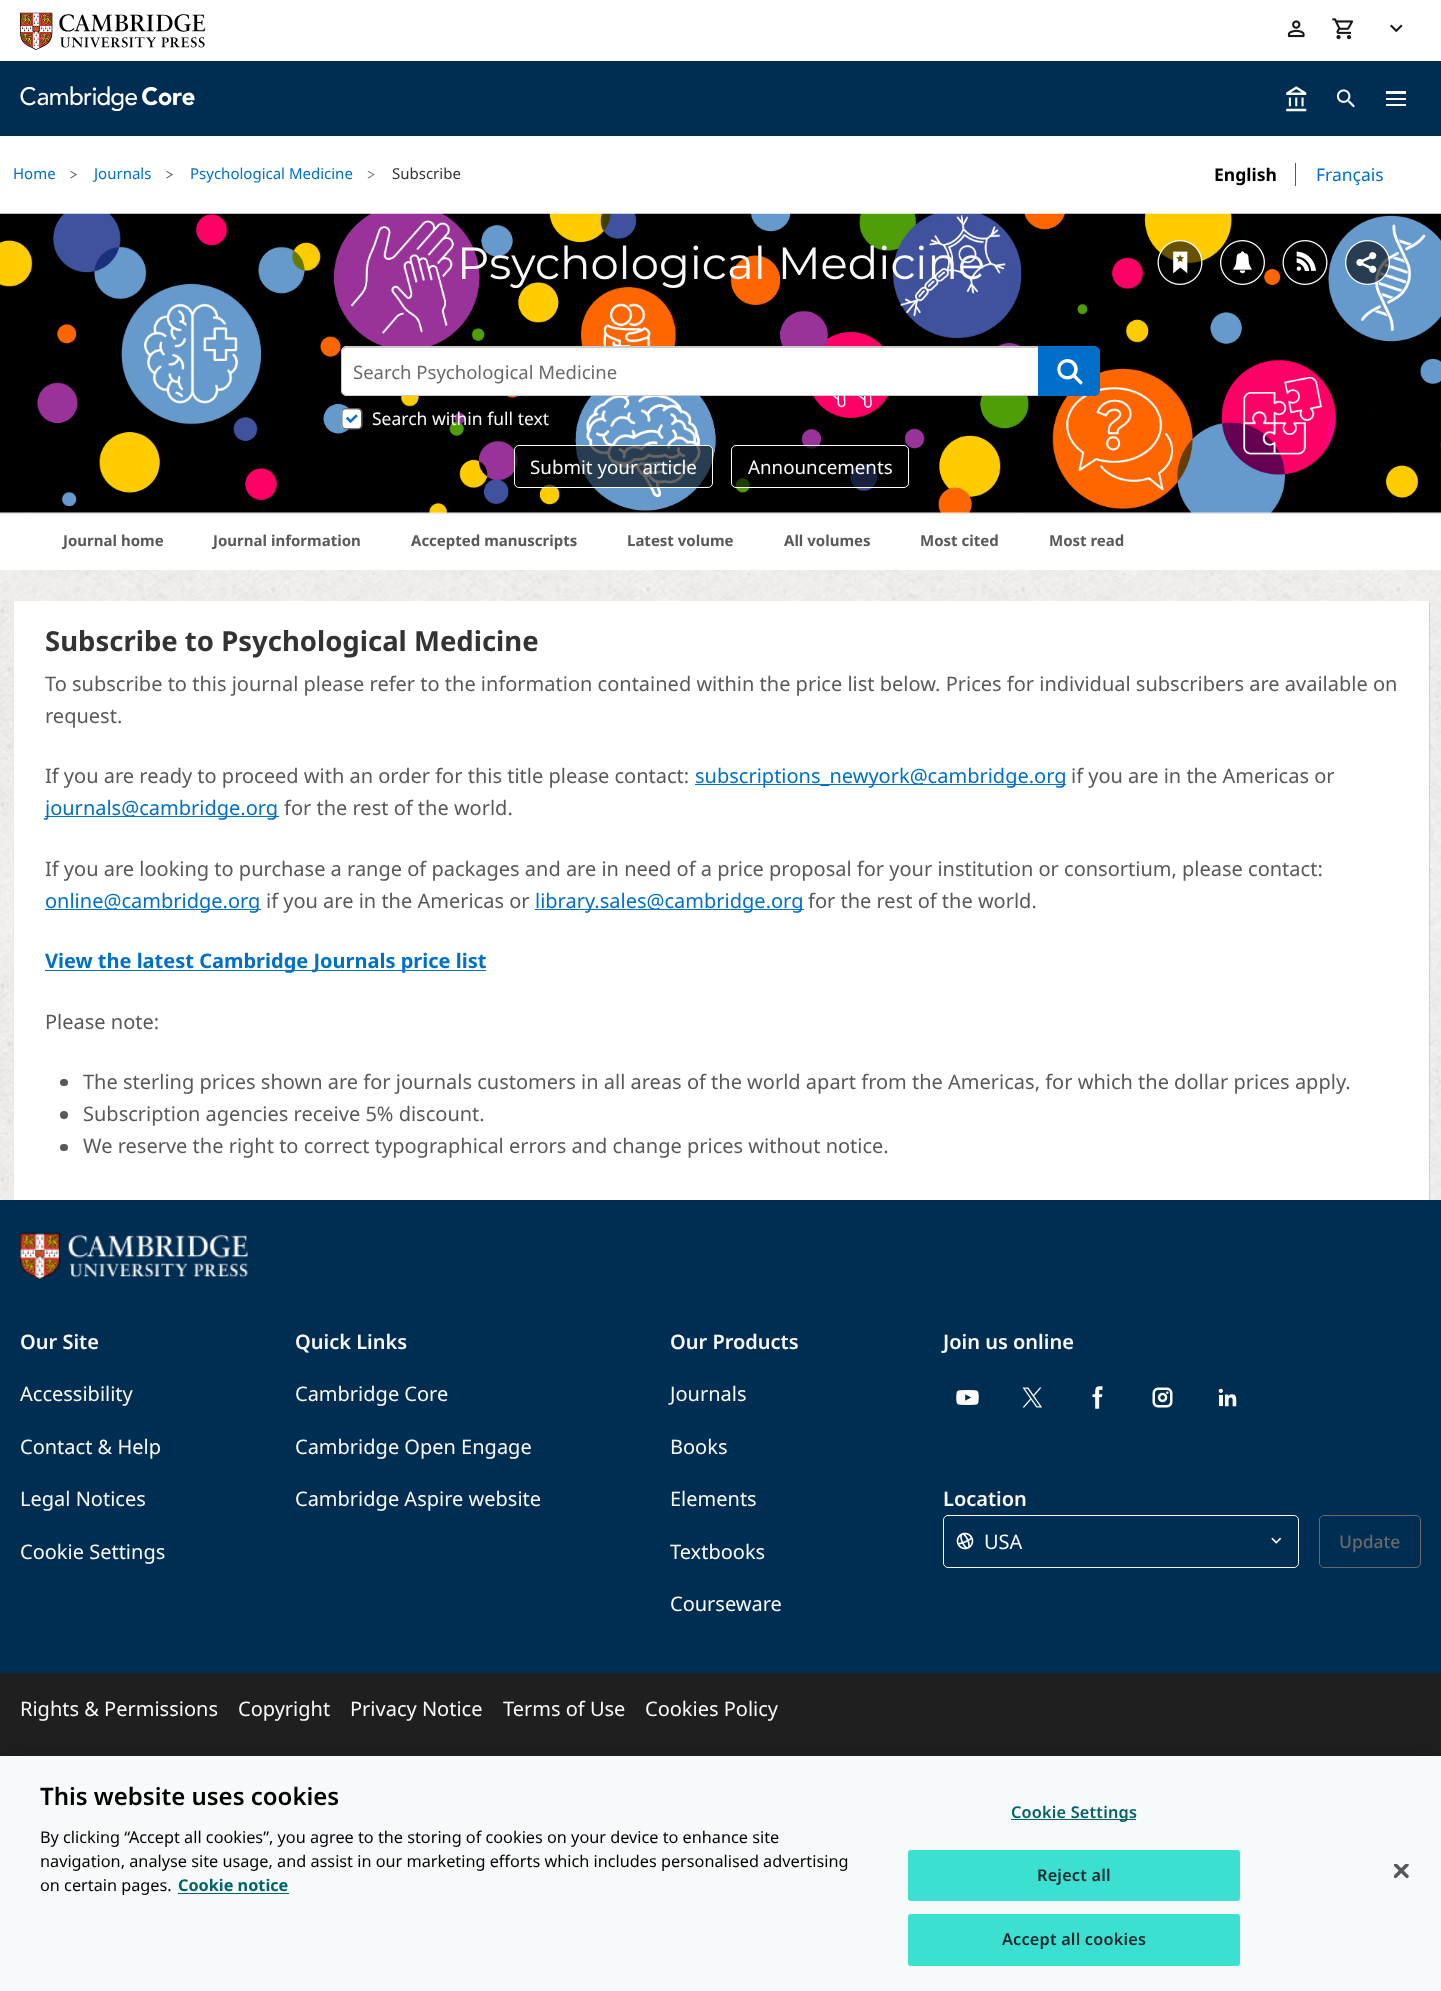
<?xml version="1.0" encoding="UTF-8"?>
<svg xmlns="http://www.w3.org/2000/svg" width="1441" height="1991">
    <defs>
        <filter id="blur1" x="-50%" y="-200%" width="200%" height="500%"><feGaussianBlur stdDeviation="0.5"/></filter>
        <filter id="blur2" x="-50%" y="-200%" width="200%" height="500%"><feGaussianBlur stdDeviation="11"/></filter>
    </defs>
    <rect width="100%" height="100%" fill="#FFFFFF"/>
    <image x="0" y="512" width="1441" height="688" href="img_01.png"/>
    <image x="20" y="12" width="186" height="38" href="img_02.png"/>
    <image x="1287" y="20" width="18" height="18" href="img_03.png"/>
    <image x="1332" y="18" width="22" height="22" href="img_04.png"/>
    <image x="1390" y="24" width="13" height="9" href="img_05.png"/>
    <rect x="0" y="61" width="1441" height="75" fill="#002D52"/>
    <image x="20" y="86" width="175" height="25" href="img_06.png"/>
    <image x="1286" y="86" width="21" height="26" href="img_07.png"/>
    <image x="1336" y="89" width="19" height="19" href="img_08.png"/>
    <rect x="1386" y="91" width="20" height="3" fill="#FAFAFA"/>
    <rect x="1386" y="98" width="20" height="2" fill="#FAFAFA"/>
    <rect x="1386" y="104" width="20" height="2" fill="#FAFAFA"/>
    <text x="13" y="179" font-family="Noto Sans" font-size="15" fill="#006FCA">Home</text>
    <path d="M 71 171 L 77 174.5 L 76 175 L 70 171.5 Z" fill="#505A5F"/>
    <path d="M 76 174 L 77 174.5 L 71 178.5 L 70 178 Z" fill="#505A5F"/>
    <text x="94" y="179" font-family="Noto Sans" font-size="15" fill="#006FCA">Journals</text>
    <path d="M 167 171 L 173 174.5 L 172 175 L 166 171.5 Z" fill="#505A5F"/>
    <path d="M 172 174 L 173 174.5 L 167 178.5 L 166 178 Z" fill="#505A5F"/>
    <text x="190" y="179" font-family="Noto Sans" font-size="15" fill="#006FCA">Psychological Medicine</text>
    <path d="M 368.5 171 L 374.5 174.5 L 374 175 L 367.5 171.5 Z" fill="#505A5F"/>
    <path d="M 374 174 L 374.5 174.5 L 368.5 178.5 L 367.5 178 Z" fill="#505A5F"/>
    <text x="392" y="179" font-family="Noto Sans" font-size="15" fill="#333333">Subscribe</text>
    <text x="1214" y="181" font-family="Noto Sans" font-size="17.5" font-weight="700" fill="#000000">English</text>
    <text x="1316" y="181" font-family="Noto Sans" font-size="17.5" fill="#006FCA">Français</text>
    <rect x="1295" y="163" width="1" height="23" fill="#595959"/>
    <image x="0" y="213" width="1441" height="300" href="img_09.png"/>
    <text x="457" y="279" font-family="Montserrat" font-size="45" font-weight="100" fill="#FAFAFA">Psychological Medicine</text>
    <image x="1157" y="240" width="46" height="45" href="img_10.png"/>
    <image x="1220" y="240" width="45" height="45" href="img_11.png"/>
    <image x="1282" y="240" width="46" height="45" href="img_12.png"/>
    <image x="1345" y="240" width="45" height="45" href="img_13.png"/>
    <path d="M 347 346 H 1038 V 396 H 347 C 343.5 396 341 393.5 341 390 V 352 C 341 348.5 343.5 346 347 346 Z" fill="#FFFFFF"/>
    <path d="M 348 346 H 1038 V 396 H 348 C 344 396 341 393 341 390 V 352 C 341 349 344 346 348 346 Z M 348 348 H 1038 V 395 H 348 C 345 395 342 393 342 390 V 352 C 342 350 345 348 348 348 Z" fill="#CCCCCC" fill-rule="evenodd"/>
    <text x="353" y="379" font-family="Noto Sans" font-size="18.5" fill="#6A6A6A">Search Psychological Medicine</text>
    <rect x="341" y="409" width="20" height="20" rx="4" fill="#FFFFFF"/>
    <image x="341" y="408" width="22" height="22" href="img_14.png"/>
    <text x="372" y="425" font-family="Noto Sans" font-size="17.5" fill="#FAFAFA">Search within full text</text>
    <path d="M 1038 346 H 1094 C 1097.5 346 1100 348.5 1100 352 V 390 C 1100 393.5 1097.5 396 1094 396 H 1038 Z" fill="#006FCA"/>
    <image x="1057" y="359" width="26" height="26" href="img_15.png"/>
    <rect x="514.5" y="445.5" width="198" height="42" rx="4.5" fill="#000000" fill-opacity="0.6" stroke="#FFFFFF"/>
    <text x="530" y="474" font-family="Noto Sans" font-size="18.75" fill="#FAFAFA">Submit your article</text>
    <rect x="731.5" y="445.5" width="177" height="42" rx="4.5" fill="#000000" fill-opacity="0.6" stroke="#FFFFFF"/>
    <text x="748" y="474" font-family="Noto Sans" font-size="18.75" fill="#FAFAFA">Announcements</text>
    <rect x="0" y="514" width="1441" height="56" fill="#FFFFFF"/>
    <rect x="0" y="513" width="1441" height="1" fill="#E8E8E8"/>
    <text x="63" y="546" font-family="Noto Sans" font-size="15" font-weight="700" fill="#595959">Journal home</text>
    <text x="213" y="546" font-family="Noto Sans" font-size="15" font-weight="700" fill="#595959">Journal information</text>
    <text x="411" y="546" font-family="Noto Sans" font-size="15" font-weight="700" fill="#595959">Accepted manuscripts</text>
    <text x="627" y="546" font-family="Noto Sans" font-size="15" font-weight="700" fill="#595959">Latest volume</text>
    <text x="784" y="546" font-family="Noto Sans" font-size="15" font-weight="700" fill="#595959">All volumes</text>
    <text x="920" y="546" font-family="Noto Sans" font-size="15" font-weight="700" fill="#595959">Most cited</text>
    <text x="1049" y="546" font-family="Noto Sans" font-size="15" font-weight="700" fill="#595959">Most read</text>
    <rect x="0" y="1200" width="1441" height="473" fill="#002D52"/>
    <rect x="14" y="603" width="1416" height="598" fill="#333333" fill-opacity="0.15" filter="url(#blur1)"/>
    <rect x="14" y="601" width="1415" height="599" fill="#FFFFFF"/>
    <rect x="13" y="601" width="1" height="599" fill="#E8E8E8"/>
    <text x="45" y="651" font-family="Noto Sans" font-size="27.5" font-weight="700" fill="#333333">Subscribe to Psychological Medicine</text>
    <text font-family="Noto Sans" font-size="20" fill="#595959">
        <tspan x="45" y="691">To subscribe to this journal please refer to the information contained within the price list below. Prices for individual subscribers are available on</tspan>
        <tspan x="45" y="723">request.</tspan>
    </text>
    <text x="45" y="783" font-family="Noto Sans" font-size="20" fill="#595959">If you are ready to proceed with an order for this title please contact:</text>
    <rect x="695" y="784" width="371" height="1" fill="#006FCA"/>
    <text x="695" y="783" font-family="Noto Sans" font-size="20" fill="#006FCA">subscriptions_newyork@cambridge.org</text>
    <text x="1071" y="783" font-family="Noto Sans" font-size="20" fill="#595959">if you are in the Americas or</text>
    <rect x="45" y="816" width="234" height="1" fill="#006FCA"/>
    <text x="45" y="815" font-family="Noto Sans" font-size="20" fill="#006FCA">journals@cambridge.org</text>
    <text x="284" y="815" font-family="Noto Sans" font-size="20" fill="#595959">for the rest of the world.</text>
    <text x="45" y="876" font-family="Noto Sans" font-size="20" fill="#595959">If you are looking to purchase a range of packages and are in need of a price proposal for your institution or consortium, please contact:</text>
    <rect x="45" y="909" width="216" height="1" fill="#006FCA"/>
    <text x="45" y="908" font-family="Noto Sans" font-size="20" fill="#006FCA">online@cambridge.org</text>
    <text x="266" y="908" font-family="Noto Sans" font-size="20" fill="#595959">if you are in the Americas or</text>
    <rect x="535" y="909" width="269" height="1" fill="#006FCA"/>
    <text x="535" y="908" font-family="Noto Sans" font-size="20" fill="#006FCA">library.sales@cambridge.org</text>
    <text x="808" y="908" font-family="Noto Sans" font-size="20" fill="#595959">for the rest of the world.</text>
    <rect x="45" y="970" width="441" height="1" fill="#006FCA"/>
    <text x="45" y="968" font-family="Noto Sans" font-size="20" font-weight="700" fill="#006FCA">View the latest Cambridge Journals price list</text>
    <text x="45" y="1029" font-family="Noto Sans" font-size="20" fill="#595959">Please note:</text>
    <rect x="60" y="1079" width="8" height="7" rx="3.5" fill="#595959"/>
    <text x="83" y="1089" font-family="Noto Sans" font-size="20" fill="#595959">The sterling prices shown are for journals customers in all areas of the world apart from the Americas, for which the dollar prices apply.</text>
    <circle cx="64" cy="1115" r="4" fill="#595959"/>
    <text x="83" y="1121" font-family="Noto Sans" font-size="20" fill="#595959">Subscription agencies receive 5% discount.</text>
    <rect x="60" y="1144" width="8" height="7" rx="3.5" fill="#595959"/>
    <text x="83" y="1153" font-family="Noto Sans" font-size="20" fill="#595959">We reserve the right to correct typographical errors and change prices without notice.</text>
    <image x="20" y="1232" width="228" height="48" href="img_16.png"/>
    <text x="20" y="1349" font-family="Noto Sans" font-size="20" font-weight="600" fill="#FAFAFA">Our Site</text>
    <text x="20" y="1401" font-family="Noto Sans" font-size="20" fill="#FAFAFA">Accessibility</text>
    <text x="20" y="1454" font-family="Noto Sans" font-size="20" fill="#FAFAFA">Contact &amp; Help</text>
    <text x="20" y="1506" font-family="Noto Sans" font-size="20" fill="#FAFAFA">Legal Notices</text>
    <text x="20" y="1559" font-family="Noto Sans" font-size="20" fill="#FAFAFA">Cookie Settings</text>
    <text x="295" y="1349" font-family="Noto Sans" font-size="20" font-weight="600" fill="#FAFAFA">Quick Links</text>
    <text x="295" y="1401" font-family="Noto Sans" font-size="20" fill="#FAFAFA">Cambridge Core</text>
    <text x="295" y="1454" font-family="Noto Sans" font-size="20" fill="#FAFAFA">Cambridge Open Engage</text>
    <text x="295" y="1506" font-family="Noto Sans" font-size="20" fill="#FAFAFA">Cambridge Aspire website</text>
    <text x="670" y="1349" font-family="Noto Sans" font-size="20" font-weight="600" fill="#FAFAFA">Our Products</text>
    <text x="670" y="1401" font-family="Noto Sans" font-size="20" fill="#FAFAFA">Journals</text>
    <text x="670" y="1454" font-family="Noto Sans" font-size="20" fill="#FAFAFA">Books</text>
    <text x="670" y="1506" font-family="Noto Sans" font-size="20" fill="#FAFAFA">Elements</text>
    <text x="670" y="1559" font-family="Noto Sans" font-size="20" fill="#FAFAFA">Textbooks</text>
    <text x="670" y="1611" font-family="Noto Sans" font-size="20" fill="#FAFAFA">Courseware</text>
    <text x="943" y="1349" font-family="Noto Sans" font-size="20" font-weight="600" fill="#FAFAFA">Join us online</text>
    <image x="956" y="1390" width="23" height="15" href="img_17.png"/>
    <image x="1022" y="1387" width="20" height="21" href="img_18.png"/>
    <image x="1092" y="1386" width="11" height="23" href="img_19.png"/>
    <image x="1152" y="1387" width="21" height="21" href="img_20.png"/>
    <image x="1218" y="1388" width="19" height="19" href="img_21.png"/>
    <text x="943" y="1506" font-family="Noto Sans" font-size="20" font-weight="600" fill="#FAFAFA">Location</text>
    <rect x="943.5" y="1515.5" width="355" height="52" rx="4.5" fill="none" stroke="#FAFAFA"/>
    <image x="956" y="1532" width="18" height="18" href="img_22.png"/>
    <text x="984" y="1549" font-family="Noto Sans" font-size="20" fill="#FAFAFA">USA</text>
    <image x="1271" y="1537" width="11" height="7" href="img_23.png"/>
    <rect x="1319.5" y="1515.5" width="101" height="52" rx="4.5" fill="none" stroke="#6A6A6A"/>
    <text x="1339" y="1548" font-family="Noto Sans" font-size="17.5" font-weight="500" fill="#6A6A6A">Update</text>
    <rect x="0" y="1673" width="1441" height="83" fill="#1F1F1F"/>
    <text x="20" y="1716" font-family="Noto Sans" font-size="20" fill="#FAFAFA">Rights &amp; Permissions</text>
    <text x="238" y="1716" font-family="Noto Sans" font-size="20" fill="#FAFAFA">Copyright</text>
    <text x="350" y="1716" font-family="Noto Sans" font-size="20" fill="#FAFAFA">Privacy Notice</text>
    <text x="503" y="1716" font-family="Noto Sans" font-size="20" fill="#FAFAFA">Terms of Use</text>
    <text x="645" y="1716" font-family="Noto Sans" font-size="20" fill="#FAFAFA">Cookies Policy</text>
    <rect x="0" y="1756" width="1441" height="235" fill="#000000" fill-opacity="0.2" filter="url(#blur2)"/>
    <rect x="0" y="1756" width="1441" height="235" fill="#F7FAFA"/>
    <text x="40" y="1805" font-family="Noto Sans" font-size="24" font-weight="600" fill="#000000">This website uses cookies</text>
    <text font-family="Noto Sans" font-size="16.25" fill="#000000">
        <tspan x="40" y="1843">By clicking “Accept all cookies”, you agree to the storing of cookies on your device to enhance site</tspan>
        <tspan x="40" y="1867">navigation, analyse site usage, and assist in our marketing efforts which includes personalised advertising</tspan>
        <tspan x="40" y="1891">on certain pages.</tspan>
    </text>
    <text x="178" y="1891" font-family="Noto Sans" font-size="16.25" font-weight="700" fill="#036268">Cookie notice</text>
    <rect x="178" y="1893" width="111" height="1" fill="#036268"/>
    <rect x="1011" y="1819" width="125" height="1" fill="#036268"/>
    <text x="1011" y="1818" font-family="Noto Sans" font-size="16.25" font-weight="600" letter-spacing="0.2" fill="#036268">Cookie Settings</text>
    <rect x="908.5" y="1850.5" width="331" height="50" rx="2" fill="#3BE0D0" stroke="#3BE0D0"/>
    <text x="1037" y="1881" font-family="Noto Sans" font-size="16.25" font-weight="600" letter-spacing="0.2" fill="#112730">Reject all</text>
    <rect x="908.5" y="1914.5" width="331" height="51" rx="2" fill="#3BE0D0" stroke="#3BE0D0"/>
    <text x="1002" y="1945" font-family="Noto Sans" font-size="16.25" font-weight="600" letter-spacing="0.2" fill="#112730">Accept all cookies</text>
    <image x="1394" y="1864" width="15" height="15" href="img_24.png"/>
</svg>
